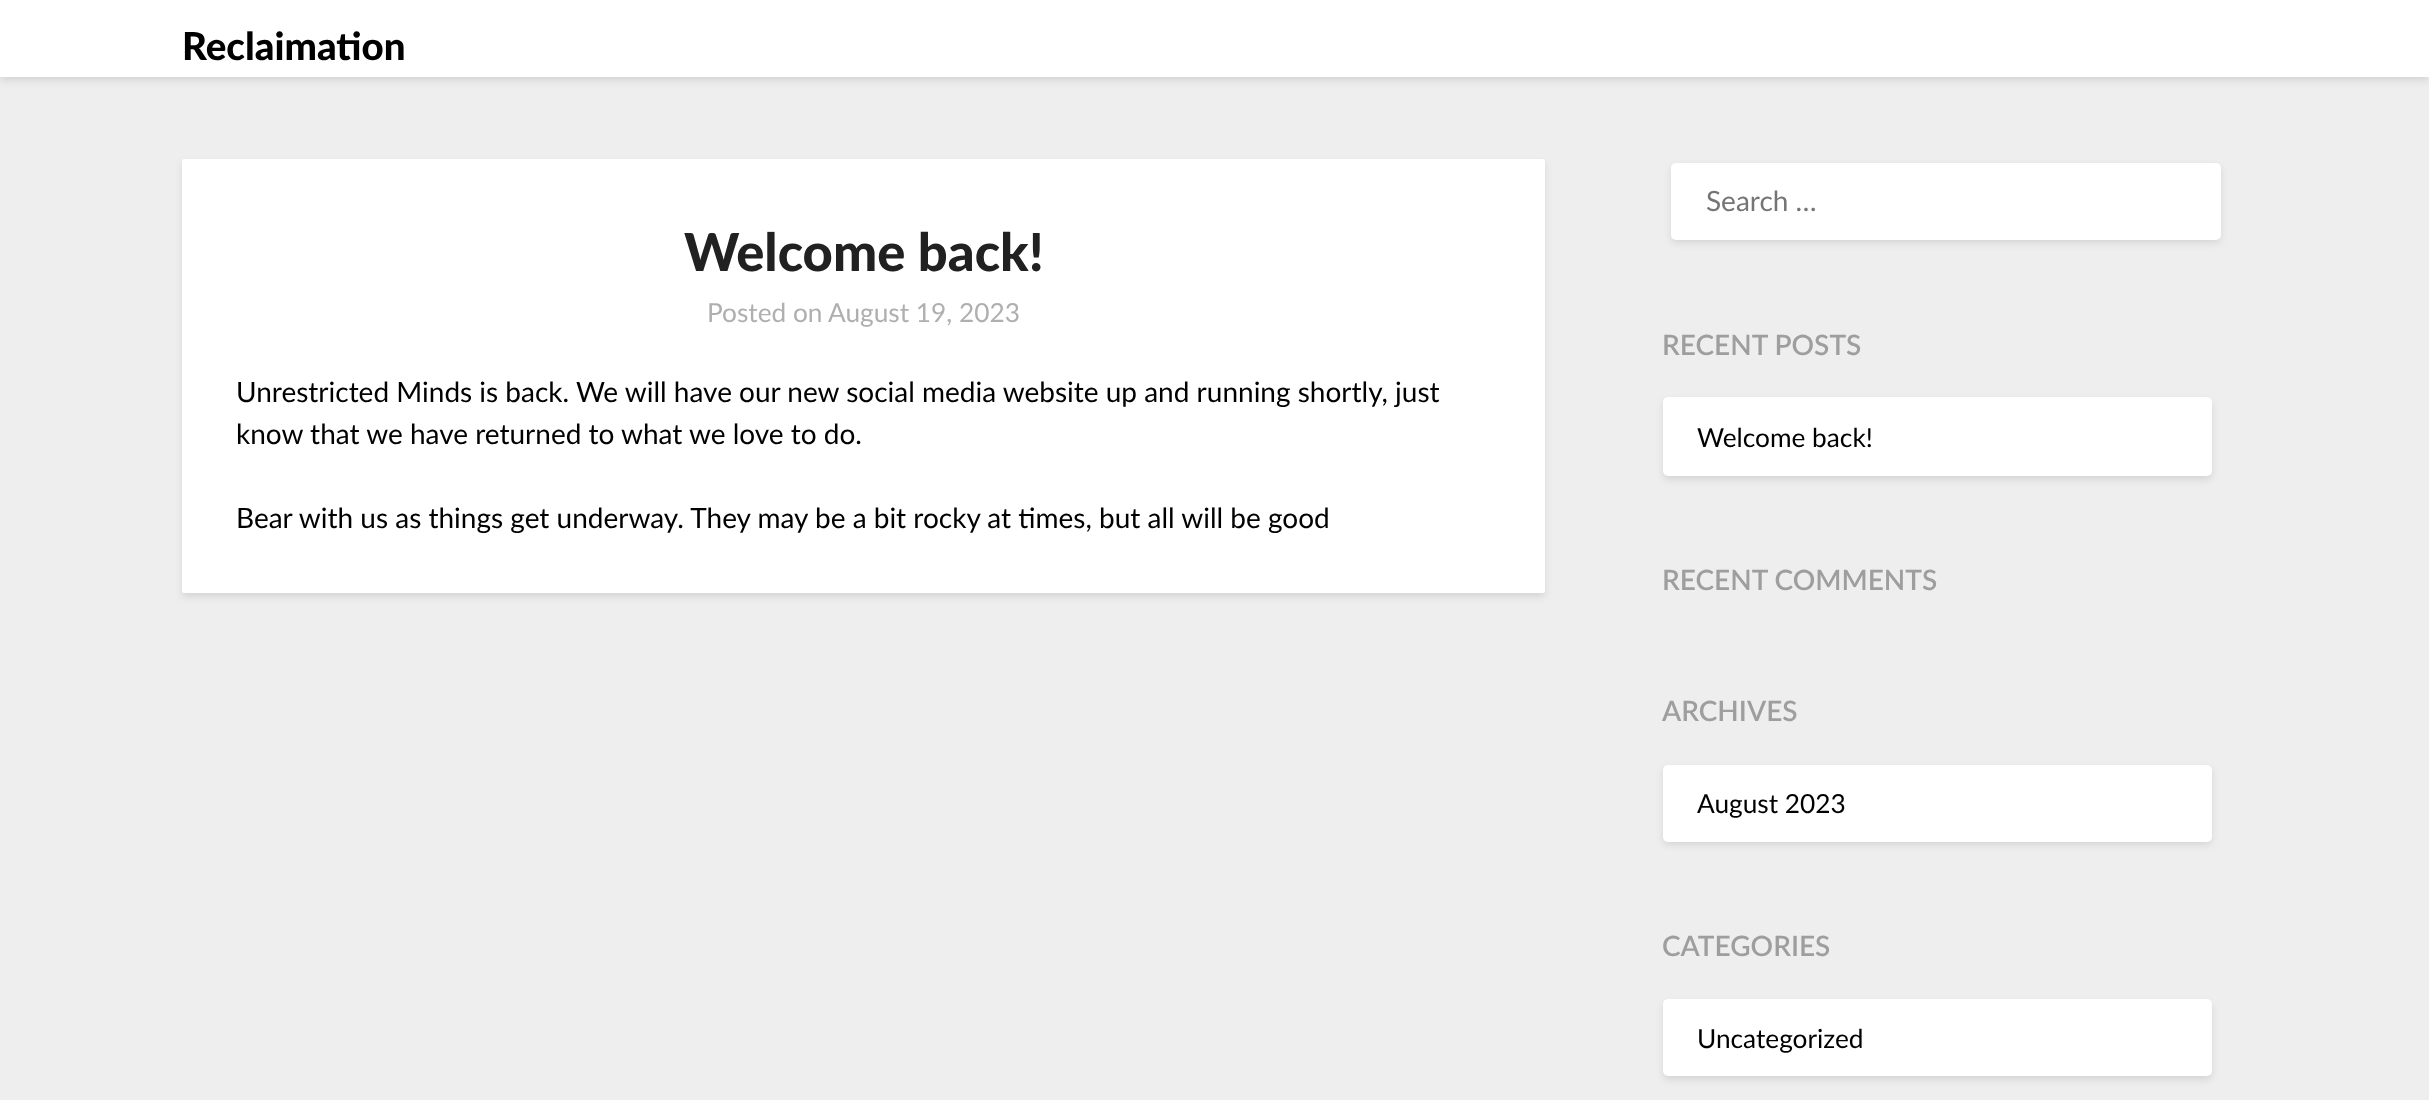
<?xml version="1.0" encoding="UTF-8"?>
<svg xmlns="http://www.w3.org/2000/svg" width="2429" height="1100">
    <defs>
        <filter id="blur1" x="-50%" y="-200%" width="200%" height="500%"><feGaussianBlur stdDeviation="3.5"/></filter>
    </defs>
    <rect width="100%" height="100%" fill="#EEEEEE"/>
    <rect x="0" y="4" width="2429" height="77" fill="#000000" fill-opacity="0.1" filter="url(#blur1)"/>
    <rect x="0" y="0" width="2429" height="77" fill="#FFFFFF"/>
    <text x="182" y="60" font-family="Lato" font-size="38.5" font-weight="900" fill="#000000">Reclaimation</text>
    <rect x="182" y="163" width="1363" height="434" rx="2" fill="#000000" fill-opacity="0.1" filter="url(#blur1)"/>
    <rect x="182" y="159" width="1363" height="434" rx="2" fill="#FFFFFF"/>
    <text x="684" y="271" font-family="Lato" font-size="52.5" font-weight="900" fill="#212121">Welcome back!</text>
    <text x="707" y="322" font-family="Lato" font-size="26.25" fill="#AFAFAF">Posted on</text>
    <text x="828" y="322" font-family="Lato" font-size="26.25" fill="#AFAFAF">August 19, 2023</text>
    <text font-family="Lato" font-size="28" fill="#000000">
        <tspan x="236" y="402">Unrestricted Minds is back. We will have our new social media website up and running shortly, just</tspan>
        <tspan x="236" y="444">know that we have returned to what we love to do.</tspan>
    </text>
    <text x="236" y="528" font-family="Lato" font-size="28" fill="#000000">Bear with us as things get underway. They may be a bit rocky at times, but all will be good</text>
    <rect x="1671" y="166" width="550" height="77" rx="5" fill="#000000" fill-opacity="0.1" filter="url(#blur1)"/>
    <rect x="1671" y="163" width="550" height="77" rx="5" fill="#FFFFFF"/>
    <text x="1706" y="211" font-family="Lato" font-size="28" fill="#757575">Search …</text>
    <text x="1662" y="355" font-family="Lato" font-size="28" font-weight="600" fill="#9E9E9E">RECENT POSTS</text>
    <rect x="1663" y="401" width="549" height="79" rx="5" fill="#000000" fill-opacity="0.1" filter="url(#blur1)"/>
    <rect x="1663" y="397" width="549" height="79" rx="5" fill="#FFFFFF"/>
    <text x="1697" y="447" font-family="Lato" font-size="26.25" fill="#000000">Welcome back!</text>
    <text x="1662" y="590" font-family="Lato" font-size="28" font-weight="600" fill="#9E9E9E">RECENT COMMENTS</text>
    <text x="1662" y="721" font-family="Lato" font-size="28" font-weight="600" fill="#9E9E9E">ARCHIVES</text>
    <rect x="1663" y="768" width="549" height="77" rx="5" fill="#000000" fill-opacity="0.1" filter="url(#blur1)"/>
    <rect x="1663" y="765" width="549" height="77" rx="5" fill="#FFFFFF"/>
    <text x="1697" y="813" font-family="Lato" font-size="26.25" fill="#000000">August 2023</text>
    <text x="1662" y="956" font-family="Lato" font-size="28" font-weight="600" fill="#9E9E9E">CATEGORIES</text>
    <rect x="1663" y="1003" width="549" height="77" rx="5" fill="#000000" fill-opacity="0.1" filter="url(#blur1)"/>
    <rect x="1663" y="999" width="549" height="77" rx="5" fill="#FFFFFF"/>
    <text x="1697" y="1048" font-family="Lato" font-size="26.25" fill="#000000">Uncategorized</text>
</svg>
